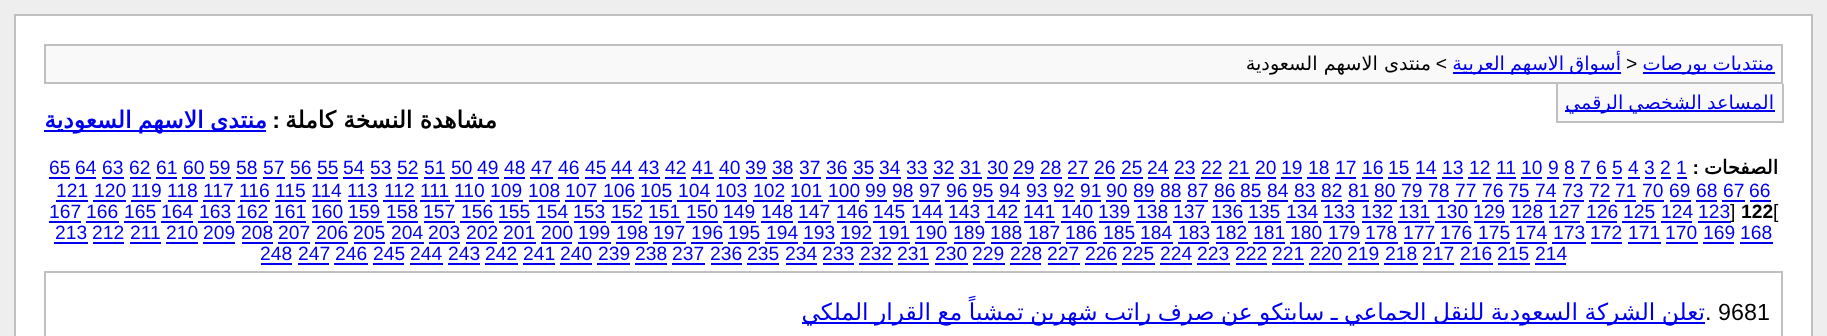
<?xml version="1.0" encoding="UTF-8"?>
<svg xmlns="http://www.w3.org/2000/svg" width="1827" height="336">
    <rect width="100%" height="100%" fill="#EEEEEE"/>
    <rect x="15" y="15" width="1797" height="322" fill="#FFFFFF" stroke="#C0C0C0" stroke-width="2"/>
    <rect x="45" y="45" width="1737" height="38" fill="#F9F9F9" stroke="#C0C0C0" stroke-width="2"/>
    <text x="1431" y="70" font-family="DejaVu Sans" font-size="19.25" direction="rtl" fill="#000000">منتدى الاسهم السعودية</text>
    <text x="1447" y="70" font-family="Liberation Sans" font-size="19.25" direction="rtl" fill="#000000">&gt;</text>
    <rect x="1453" y="72" width="168" height="2" fill="#0000EE"/>
    <text x="1621" y="70" word-spacing="-1" font-family="DejaVu Sans" font-size="19.25" direction="rtl" fill="#0000EE">أسواق الاسهم العربية</text>
    <text x="1626" y="70" font-family="Liberation Sans" font-size="19.25" fill="#000000">&gt;</text>
    <rect x="1643" y="72" width="132" height="2" fill="#0000EE"/>
    <text x="1774" y="70" word-spacing="-1" font-family="DejaVu Sans" font-size="19.25" direction="rtl" fill="#0000EE">منتديات بورصات</text>
    <rect x="1558" y="84" width="224" height="37" fill="#F9F9F9"/>
    <rect x="1782" y="84" width="2" height="39" fill="#C0C0C0"/>
    <rect x="1556" y="121" width="227" height="2" fill="#C0C0C0"/>
    <rect x="1556" y="84" width="2" height="39" fill="#C0C0C0"/>
    <rect x="1565" y="110" width="210" height="2" fill="#0000EE"/>
    <text x="1774" y="109" word-spacing="-1" font-family="DejaVu Sans" font-size="19.25" direction="rtl" fill="#0000EE">المساعد الشخصي الرقمي</text>
    <rect x="44" y="130" width="222" height="2" fill="#0000EE"/>
    <text x="267" y="128" word-spacing="-1" font-family="DejaVu Sans" font-size="23.35" font-weight="700" direction="rtl" fill="#0000EE">منتدى الاسهم السعودية</text>
    <text x="280" y="128" font-family="Liberation Sans" font-size="23.35" font-weight="700" direction="rtl" fill="#000000">:</text>
    <text x="497" y="128" font-family="DejaVu Sans" font-size="23.35" font-weight="700" direction="rtl" fill="#000000">مشاهدة النسخة كاملة</text>
    <text x="49" y="174" font-family="Liberation Sans" font-size="19.25" fill="#0000EE">65</text>
    <rect x="49" y="177" width="21" height="2" fill="#0000EE"/>
    <text x="75" y="174" font-family="Liberation Sans" font-size="19.25" fill="#0000EE">64</text>
    <rect x="75" y="177" width="21" height="2" fill="#0000EE"/>
    <text x="102" y="174" font-family="Liberation Sans" font-size="19.25" fill="#0000EE">63</text>
    <rect x="102" y="177" width="22" height="2" fill="#0000EE"/>
    <text x="129" y="174" font-family="Liberation Sans" font-size="19.25" fill="#0000EE">62</text>
    <rect x="130" y="177" width="21" height="2" fill="#0000EE"/>
    <text x="156" y="174" font-family="Liberation Sans" font-size="19.25" fill="#0000EE">61</text>
    <rect x="156" y="177" width="21" height="2" fill="#0000EE"/>
    <text x="183" y="174" font-family="Liberation Sans" font-size="19.25" fill="#0000EE">60</text>
    <rect x="182" y="177" width="23" height="2" fill="#0000EE"/>
    <text x="209" y="174" font-family="Liberation Sans" font-size="19.25" fill="#0000EE">59</text>
    <rect x="210" y="177" width="21" height="2" fill="#0000EE"/>
    <text x="236" y="174" font-family="Liberation Sans" font-size="19.25" fill="#0000EE">58</text>
    <rect x="236" y="177" width="21" height="2" fill="#0000EE"/>
    <text x="263" y="174" font-family="Liberation Sans" font-size="19.25" fill="#0000EE">57</text>
    <rect x="263" y="177" width="22" height="2" fill="#0000EE"/>
    <text x="290" y="174" font-family="Liberation Sans" font-size="19.25" fill="#0000EE">56</text>
    <rect x="291" y="177" width="21" height="2" fill="#0000EE"/>
    <text x="317" y="174" font-family="Liberation Sans" font-size="19.25" fill="#0000EE">55</text>
    <rect x="317" y="177" width="21" height="2" fill="#0000EE"/>
    <text x="343" y="174" font-family="Liberation Sans" font-size="19.25" fill="#0000EE">54</text>
    <rect x="343" y="177" width="21" height="2" fill="#0000EE"/>
    <text x="370" y="174" font-family="Liberation Sans" font-size="19.25" fill="#0000EE">53</text>
    <rect x="371" y="177" width="21" height="2" fill="#0000EE"/>
    <text x="397" y="174" font-family="Liberation Sans" font-size="19.25" fill="#0000EE">52</text>
    <rect x="397" y="177" width="21" height="2" fill="#0000EE"/>
    <text x="424" y="174" font-family="Liberation Sans" font-size="19.25" fill="#0000EE">51</text>
    <rect x="424" y="177" width="21" height="2" fill="#0000EE"/>
    <text x="451" y="174" font-family="Liberation Sans" font-size="19.25" fill="#0000EE">50</text>
    <rect x="450" y="177" width="23" height="2" fill="#0000EE"/>
    <text x="477" y="174" font-family="Liberation Sans" font-size="19.25" fill="#0000EE">49</text>
    <rect x="478" y="177" width="21" height="2" fill="#0000EE"/>
    <text x="504" y="174" font-family="Liberation Sans" font-size="19.25" fill="#0000EE">48</text>
    <rect x="504" y="177" width="21" height="2" fill="#0000EE"/>
    <text x="531" y="174" font-family="Liberation Sans" font-size="19.25" fill="#0000EE">47</text>
    <rect x="530" y="177" width="23" height="2" fill="#0000EE"/>
    <text x="558" y="174" font-family="Liberation Sans" font-size="19.25" fill="#0000EE">46</text>
    <rect x="558" y="177" width="21" height="2" fill="#0000EE"/>
    <text x="585" y="174" font-family="Liberation Sans" font-size="19.25" fill="#0000EE">45</text>
    <rect x="585" y="177" width="21" height="2" fill="#0000EE"/>
    <text x="611" y="174" font-family="Liberation Sans" font-size="19.25" fill="#0000EE">44</text>
    <rect x="611" y="177" width="23" height="2" fill="#0000EE"/>
    <text x="638" y="174" font-family="Liberation Sans" font-size="19.25" fill="#0000EE">43</text>
    <rect x="639" y="177" width="21" height="2" fill="#0000EE"/>
    <text x="665" y="174" font-family="Liberation Sans" font-size="19.25" fill="#0000EE">42</text>
    <rect x="665" y="177" width="21" height="2" fill="#0000EE"/>
    <text x="692" y="174" font-family="Liberation Sans" font-size="19.25" fill="#0000EE">41</text>
    <rect x="691" y="177" width="23" height="2" fill="#0000EE"/>
    <text x="719" y="174" font-family="Liberation Sans" font-size="19.25" fill="#0000EE">40</text>
    <rect x="719" y="177" width="21" height="2" fill="#0000EE"/>
    <text x="745" y="174" font-family="Liberation Sans" font-size="19.25" fill="#0000EE">39</text>
    <rect x="746" y="177" width="21" height="2" fill="#0000EE"/>
    <text x="772" y="174" font-family="Liberation Sans" font-size="19.25" fill="#0000EE">38</text>
    <rect x="772" y="177" width="21" height="2" fill="#0000EE"/>
    <text x="799" y="174" font-family="Liberation Sans" font-size="19.25" fill="#0000EE">37</text>
    <rect x="800" y="177" width="21" height="2" fill="#0000EE"/>
    <text x="826" y="174" font-family="Liberation Sans" font-size="19.25" fill="#0000EE">36</text>
    <rect x="826" y="177" width="21" height="2" fill="#0000EE"/>
    <text x="853" y="174" font-family="Liberation Sans" font-size="19.25" fill="#0000EE">35</text>
    <rect x="852" y="177" width="21" height="2" fill="#0000EE"/>
    <text x="879" y="174" font-family="Liberation Sans" font-size="19.25" fill="#0000EE">34</text>
    <rect x="879" y="177" width="22" height="2" fill="#0000EE"/>
    <text x="906" y="174" font-family="Liberation Sans" font-size="19.25" fill="#0000EE">33</text>
    <rect x="907" y="177" width="21" height="2" fill="#0000EE"/>
    <text x="933" y="174" font-family="Liberation Sans" font-size="19.25" fill="#0000EE">32</text>
    <rect x="933" y="177" width="21" height="2" fill="#0000EE"/>
    <text x="960" y="174" font-family="Liberation Sans" font-size="19.25" fill="#0000EE">31</text>
    <rect x="959" y="177" width="23" height="2" fill="#0000EE"/>
    <text x="987" y="174" font-family="Liberation Sans" font-size="19.25" fill="#0000EE">30</text>
    <rect x="987" y="177" width="21" height="2" fill="#0000EE"/>
    <text x="1013" y="174" font-family="Liberation Sans" font-size="19.25" fill="#0000EE">29</text>
    <rect x="1013" y="177" width="21" height="2" fill="#0000EE"/>
    <text x="1040" y="174" font-family="Liberation Sans" font-size="19.25" fill="#0000EE">28</text>
    <rect x="1040" y="177" width="22" height="2" fill="#0000EE"/>
    <text x="1067" y="174" font-family="Liberation Sans" font-size="19.25" fill="#0000EE">27</text>
    <rect x="1068" y="177" width="21" height="2" fill="#0000EE"/>
    <text x="1094" y="174" font-family="Liberation Sans" font-size="19.25" fill="#0000EE">26</text>
    <rect x="1094" y="177" width="21" height="2" fill="#0000EE"/>
    <text x="1121" y="174" font-family="Liberation Sans" font-size="19.25" fill="#0000EE">25</text>
    <rect x="1120" y="177" width="23" height="2" fill="#0000EE"/>
    <text x="1147" y="174" font-family="Liberation Sans" font-size="19.25" fill="#0000EE">24</text>
    <rect x="1148" y="177" width="21" height="2" fill="#0000EE"/>
    <text x="1174" y="174" font-family="Liberation Sans" font-size="19.25" fill="#0000EE">23</text>
    <rect x="1174" y="177" width="21" height="2" fill="#0000EE"/>
    <text x="1201" y="174" font-family="Liberation Sans" font-size="19.25" fill="#0000EE">22</text>
    <rect x="1201" y="177" width="21" height="2" fill="#0000EE"/>
    <text x="1228" y="174" font-family="Liberation Sans" font-size="19.25" fill="#0000EE">21</text>
    <rect x="1229" y="177" width="21" height="2" fill="#0000EE"/>
    <text x="1255" y="174" font-family="Liberation Sans" font-size="19.25" fill="#0000EE">20</text>
    <rect x="1255" y="177" width="21" height="2" fill="#0000EE"/>
    <text x="1281" y="174" font-family="Liberation Sans" font-size="19.25" fill="#0000EE">19</text>
    <rect x="1281" y="177" width="21" height="2" fill="#0000EE"/>
    <text x="1308" y="174" font-family="Liberation Sans" font-size="19.25" fill="#0000EE">18</text>
    <rect x="1307" y="177" width="23" height="2" fill="#0000EE"/>
    <text x="1335" y="174" font-family="Liberation Sans" font-size="19.25" fill="#0000EE">17</text>
    <rect x="1335" y="177" width="21" height="2" fill="#0000EE"/>
    <text x="1362" y="174" font-family="Liberation Sans" font-size="19.25" fill="#0000EE">16</text>
    <rect x="1362" y="177" width="21" height="2" fill="#0000EE"/>
    <text x="1388" y="174" font-family="Liberation Sans" font-size="19.25" fill="#0000EE">15</text>
    <rect x="1388" y="177" width="23" height="2" fill="#0000EE"/>
    <text x="1415" y="174" font-family="Liberation Sans" font-size="19.25" fill="#0000EE">14</text>
    <rect x="1416" y="177" width="21" height="2" fill="#0000EE"/>
    <text x="1442" y="174" font-family="Liberation Sans" font-size="19.25" fill="#0000EE">13</text>
    <rect x="1442" y="177" width="21" height="2" fill="#0000EE"/>
    <text x="1469" y="174" font-family="Liberation Sans" font-size="19.25" fill="#0000EE">12</text>
    <rect x="1468" y="177" width="23" height="2" fill="#0000EE"/>
    <text x="1496" y="174" font-family="Liberation Sans" font-size="19.25" fill="#0000EE">11</text>
    <rect x="1496" y="177" width="20" height="2" fill="#0000EE"/>
    <text x="1521" y="174" font-family="Liberation Sans" font-size="19.25" fill="#0000EE">10</text>
    <rect x="1521" y="177" width="21" height="2" fill="#0000EE"/>
    <text x="1548" y="174" font-family="Liberation Sans" font-size="19.25" fill="#0000EE">9</text>
    <rect x="1547" y="177" width="12" height="2" fill="#0000EE"/>
    <text x="1564" y="174" font-family="Liberation Sans" font-size="19.25" fill="#0000EE">8</text>
    <rect x="1565" y="177" width="10" height="2" fill="#0000EE"/>
    <text x="1580" y="174" font-family="Liberation Sans" font-size="19.25" fill="#0000EE">7</text>
    <rect x="1580" y="177" width="11" height="2" fill="#0000EE"/>
    <text x="1596" y="174" font-family="Liberation Sans" font-size="19.25" fill="#0000EE">6</text>
    <rect x="1596" y="177" width="11" height="2" fill="#0000EE"/>
    <text x="1612" y="174" font-family="Liberation Sans" font-size="19.25" fill="#0000EE">5</text>
    <rect x="1612" y="177" width="10" height="2" fill="#0000EE"/>
    <text x="1628" y="174" font-family="Liberation Sans" font-size="19.25" fill="#0000EE">4</text>
    <rect x="1628" y="177" width="12" height="2" fill="#0000EE"/>
    <text x="1644" y="174" font-family="Liberation Sans" font-size="19.25" fill="#0000EE">3</text>
    <rect x="1645" y="177" width="11" height="2" fill="#0000EE"/>
    <text x="1660" y="174" font-family="Liberation Sans" font-size="19.25" fill="#0000EE">2</text>
    <rect x="1661" y="177" width="10" height="2" fill="#0000EE"/>
    <text x="1676" y="174" font-family="Liberation Sans" font-size="19.25" fill="#0000EE">1</text>
    <rect x="1677" y="177" width="10" height="2" fill="#0000EE"/>
    <text x="1699" y="174" font-family="Liberation Sans" font-size="19.25" font-weight="700" direction="rtl" fill="#000000">:</text>
    <text x="1778" y="174" font-family="DejaVu Sans" font-size="19.25" font-weight="700" direction="rtl" fill="#000000">الصفحات</text>
    <text x="56" y="197" font-family="Liberation Sans" font-size="19.25" fill="#0000EE">121</text>
    <rect x="56" y="200" width="32" height="2" fill="#0000EE"/>
    <text x="94" y="197" font-family="Liberation Sans" font-size="19.25" fill="#0000EE">120</text>
    <rect x="93" y="200" width="33" height="2" fill="#0000EE"/>
    <text x="131" y="197" font-family="Liberation Sans" font-size="19.25" fill="#0000EE">119</text>
    <rect x="131" y="200" width="30" height="2" fill="#0000EE"/>
    <text x="167" y="197" font-family="Liberation Sans" font-size="19.25" fill="#0000EE">118</text>
    <rect x="168" y="200" width="30" height="2" fill="#0000EE"/>
    <text x="203" y="197" font-family="Liberation Sans" font-size="19.25" fill="#0000EE">117</text>
    <rect x="203" y="200" width="32" height="2" fill="#0000EE"/>
    <text x="239" y="197" font-family="Liberation Sans" font-size="19.25" fill="#0000EE">116</text>
    <rect x="240" y="200" width="30" height="2" fill="#0000EE"/>
    <text x="275" y="197" font-family="Liberation Sans" font-size="19.25" fill="#0000EE">115</text>
    <rect x="275" y="200" width="31" height="2" fill="#0000EE"/>
    <text x="311" y="197" font-family="Liberation Sans" font-size="19.25" fill="#0000EE">114</text>
    <rect x="312" y="200" width="29" height="2" fill="#0000EE"/>
    <text x="347" y="197" font-family="Liberation Sans" font-size="19.25" fill="#0000EE">113</text>
    <rect x="348" y="200" width="30" height="2" fill="#0000EE"/>
    <text x="384" y="197" font-family="Liberation Sans" font-size="19.25" fill="#0000EE">112</text>
    <rect x="383" y="200" width="32" height="2" fill="#0000EE"/>
    <text x="420" y="197" font-family="Liberation Sans" font-size="19.25" fill="#0000EE">111</text>
    <rect x="420" y="200" width="30" height="2" fill="#0000EE"/>
    <text x="454" y="197" font-family="Liberation Sans" font-size="19.25" fill="#0000EE">110</text>
    <rect x="455" y="200" width="30" height="2" fill="#0000EE"/>
    <text x="490" y="197" font-family="Liberation Sans" font-size="19.25" fill="#0000EE">109</text>
    <rect x="490" y="200" width="33" height="2" fill="#0000EE"/>
    <text x="528" y="197" font-family="Liberation Sans" font-size="19.25" fill="#0000EE">108</text>
    <rect x="529" y="200" width="31" height="2" fill="#0000EE"/>
    <text x="565" y="197" font-family="Liberation Sans" font-size="19.25" fill="#0000EE">107</text>
    <rect x="565" y="200" width="32" height="2" fill="#0000EE"/>
    <text x="603" y="197" font-family="Liberation Sans" font-size="19.25" fill="#0000EE">106</text>
    <rect x="602" y="200" width="33" height="2" fill="#0000EE"/>
    <text x="640" y="197" font-family="Liberation Sans" font-size="19.25" fill="#0000EE">105</text>
    <rect x="641" y="200" width="31" height="2" fill="#0000EE"/>
    <text x="678" y="197" font-family="Liberation Sans" font-size="19.25" fill="#0000EE">104</text>
    <rect x="677" y="200" width="34" height="2" fill="#0000EE"/>
    <text x="715" y="197" font-family="Liberation Sans" font-size="19.25" fill="#0000EE">103</text>
    <rect x="716" y="200" width="31" height="2" fill="#0000EE"/>
    <text x="753" y="197" font-family="Liberation Sans" font-size="19.25" fill="#0000EE">102</text>
    <rect x="753" y="200" width="31" height="2" fill="#0000EE"/>
    <text x="790" y="197" font-family="Liberation Sans" font-size="19.25" fill="#0000EE">101</text>
    <rect x="791" y="200" width="32" height="2" fill="#0000EE"/>
    <text x="828" y="197" font-family="Liberation Sans" font-size="19.25" fill="#0000EE">100</text>
    <rect x="828" y="200" width="31" height="2" fill="#0000EE"/>
    <text x="865" y="197" font-family="Liberation Sans" font-size="19.25" fill="#0000EE">99</text>
    <rect x="865" y="200" width="22" height="2" fill="#0000EE"/>
    <text x="892" y="197" font-family="Liberation Sans" font-size="19.25" fill="#0000EE">98</text>
    <rect x="893" y="200" width="21" height="2" fill="#0000EE"/>
    <text x="919" y="197" font-family="Liberation Sans" font-size="19.25" fill="#0000EE">97</text>
    <rect x="919" y="200" width="21" height="2" fill="#0000EE"/>
    <text x="946" y="197" font-family="Liberation Sans" font-size="19.25" fill="#0000EE">96</text>
    <rect x="945" y="200" width="23" height="2" fill="#0000EE"/>
    <text x="972" y="197" font-family="Liberation Sans" font-size="19.25" fill="#0000EE">95</text>
    <rect x="973" y="200" width="21" height="2" fill="#0000EE"/>
    <text x="999" y="197" font-family="Liberation Sans" font-size="19.25" fill="#0000EE">94</text>
    <rect x="999" y="200" width="21" height="2" fill="#0000EE"/>
    <text x="1026" y="197" font-family="Liberation Sans" font-size="19.25" fill="#0000EE">93</text>
    <rect x="1026" y="200" width="22" height="2" fill="#0000EE"/>
    <text x="1053" y="197" font-family="Liberation Sans" font-size="19.25" fill="#0000EE">92</text>
    <rect x="1054" y="200" width="21" height="2" fill="#0000EE"/>
    <text x="1080" y="197" font-family="Liberation Sans" font-size="19.25" fill="#0000EE">91</text>
    <rect x="1080" y="200" width="21" height="2" fill="#0000EE"/>
    <text x="1106" y="197" font-family="Liberation Sans" font-size="19.25" fill="#0000EE">90</text>
    <rect x="1106" y="200" width="21" height="2" fill="#0000EE"/>
    <text x="1133" y="197" font-family="Liberation Sans" font-size="19.25" fill="#0000EE">89</text>
    <rect x="1134" y="200" width="21" height="2" fill="#0000EE"/>
    <text x="1160" y="197" font-family="Liberation Sans" font-size="19.25" fill="#0000EE">88</text>
    <rect x="1160" y="200" width="21" height="2" fill="#0000EE"/>
    <text x="1187" y="197" font-family="Liberation Sans" font-size="19.25" fill="#0000EE">87</text>
    <rect x="1187" y="200" width="21" height="2" fill="#0000EE"/>
    <text x="1214" y="197" font-family="Liberation Sans" font-size="19.25" fill="#0000EE">86</text>
    <rect x="1213" y="200" width="23" height="2" fill="#0000EE"/>
    <text x="1240" y="197" font-family="Liberation Sans" font-size="19.25" fill="#0000EE">85</text>
    <rect x="1241" y="200" width="21" height="2" fill="#0000EE"/>
    <text x="1267" y="197" font-family="Liberation Sans" font-size="19.25" fill="#0000EE">84</text>
    <rect x="1267" y="200" width="21" height="2" fill="#0000EE"/>
    <text x="1294" y="197" font-family="Liberation Sans" font-size="19.25" fill="#0000EE">83</text>
    <rect x="1293" y="200" width="23" height="2" fill="#0000EE"/>
    <text x="1321" y="197" font-family="Liberation Sans" font-size="19.25" fill="#0000EE">82</text>
    <rect x="1321" y="200" width="21" height="2" fill="#0000EE"/>
    <text x="1348" y="197" font-family="Liberation Sans" font-size="19.25" fill="#0000EE">81</text>
    <rect x="1348" y="200" width="21" height="2" fill="#0000EE"/>
    <text x="1374" y="197" font-family="Liberation Sans" font-size="19.25" fill="#0000EE">80</text>
    <rect x="1374" y="200" width="23" height="2" fill="#0000EE"/>
    <text x="1401" y="197" font-family="Liberation Sans" font-size="19.25" fill="#0000EE">79</text>
    <rect x="1402" y="200" width="21" height="2" fill="#0000EE"/>
    <text x="1428" y="197" font-family="Liberation Sans" font-size="19.25" fill="#0000EE">78</text>
    <rect x="1428" y="200" width="21" height="2" fill="#0000EE"/>
    <text x="1455" y="197" font-family="Liberation Sans" font-size="19.25" fill="#0000EE">77</text>
    <rect x="1454" y="200" width="23" height="2" fill="#0000EE"/>
    <text x="1482" y="197" font-family="Liberation Sans" font-size="19.25" fill="#0000EE">76</text>
    <rect x="1482" y="200" width="21" height="2" fill="#0000EE"/>
    <text x="1508" y="197" font-family="Liberation Sans" font-size="19.25" fill="#0000EE">75</text>
    <rect x="1509" y="200" width="21" height="2" fill="#0000EE"/>
    <text x="1535" y="197" font-family="Liberation Sans" font-size="19.25" fill="#0000EE">74</text>
    <rect x="1535" y="200" width="21" height="2" fill="#0000EE"/>
    <text x="1562" y="197" font-family="Liberation Sans" font-size="19.25" fill="#0000EE">73</text>
    <rect x="1563" y="200" width="21" height="2" fill="#0000EE"/>
    <text x="1589" y="197" font-family="Liberation Sans" font-size="19.25" fill="#0000EE">72</text>
    <rect x="1589" y="200" width="21" height="2" fill="#0000EE"/>
    <text x="1615" y="197" font-family="Liberation Sans" font-size="19.25" fill="#0000EE">71</text>
    <rect x="1615" y="200" width="21" height="2" fill="#0000EE"/>
    <text x="1642" y="197" font-family="Liberation Sans" font-size="19.25" fill="#0000EE">70</text>
    <rect x="1642" y="200" width="22" height="2" fill="#0000EE"/>
    <text x="1669" y="197" font-family="Liberation Sans" font-size="19.25" fill="#0000EE">69</text>
    <rect x="1670" y="200" width="21" height="2" fill="#0000EE"/>
    <text x="1696" y="197" font-family="Liberation Sans" font-size="19.25" fill="#0000EE">68</text>
    <rect x="1696" y="200" width="21" height="2" fill="#0000EE"/>
    <text x="1723" y="197" font-family="Liberation Sans" font-size="19.25" fill="#0000EE">67</text>
    <rect x="1722" y="200" width="23" height="2" fill="#0000EE"/>
    <text x="1749" y="197" font-family="Liberation Sans" font-size="19.25" fill="#0000EE">66</text>
    <rect x="1750" y="200" width="21" height="2" fill="#0000EE"/>
    <text x="49" y="218" font-family="Liberation Sans" font-size="19.25" fill="#0000EE">167</text>
    <rect x="49" y="221" width="32" height="2" fill="#0000EE"/>
    <text x="86" y="218" font-family="Liberation Sans" font-size="19.25" fill="#0000EE">166</text>
    <rect x="86" y="221" width="33" height="2" fill="#0000EE"/>
    <text x="124" y="218" font-family="Liberation Sans" font-size="19.25" fill="#0000EE">165</text>
    <rect x="124" y="221" width="32" height="2" fill="#0000EE"/>
    <text x="161" y="218" font-family="Liberation Sans" font-size="19.25" fill="#0000EE">164</text>
    <rect x="161" y="221" width="32" height="2" fill="#0000EE"/>
    <text x="199" y="218" font-family="Liberation Sans" font-size="19.25" fill="#0000EE">163</text>
    <rect x="198" y="221" width="33" height="2" fill="#0000EE"/>
    <text x="236" y="218" font-family="Liberation Sans" font-size="19.25" fill="#0000EE">162</text>
    <rect x="236" y="221" width="32" height="2" fill="#0000EE"/>
    <text x="274" y="218" font-family="Liberation Sans" font-size="19.25" fill="#0000EE">161</text>
    <rect x="273" y="221" width="33" height="2" fill="#0000EE"/>
    <text x="311" y="218" font-family="Liberation Sans" font-size="19.25" fill="#0000EE">160</text>
    <rect x="312" y="221" width="31" height="2" fill="#0000EE"/>
    <text x="348" y="218" font-family="Liberation Sans" font-size="19.25" fill="#0000EE">159</text>
    <rect x="348" y="221" width="34" height="2" fill="#0000EE"/>
    <text x="386" y="218" font-family="Liberation Sans" font-size="19.25" fill="#0000EE">158</text>
    <rect x="387" y="221" width="31" height="2" fill="#0000EE"/>
    <text x="423" y="218" font-family="Liberation Sans" font-size="19.25" fill="#0000EE">157</text>
    <rect x="424" y="221" width="31" height="2" fill="#0000EE"/>
    <text x="461" y="218" font-family="Liberation Sans" font-size="19.25" fill="#0000EE">156</text>
    <rect x="460" y="221" width="34" height="2" fill="#0000EE"/>
    <text x="498" y="218" font-family="Liberation Sans" font-size="19.25" fill="#0000EE">155</text>
    <rect x="499" y="221" width="31" height="2" fill="#0000EE"/>
    <text x="536" y="218" font-family="Liberation Sans" font-size="19.25" fill="#0000EE">154</text>
    <rect x="536" y="221" width="33" height="2" fill="#0000EE"/>
    <text x="573" y="218" font-family="Liberation Sans" font-size="19.25" fill="#0000EE">153</text>
    <rect x="574" y="221" width="32" height="2" fill="#0000EE"/>
    <text x="611" y="218" font-family="Liberation Sans" font-size="19.25" fill="#0000EE">152</text>
    <rect x="611" y="221" width="31" height="2" fill="#0000EE"/>
    <text x="648" y="218" font-family="Liberation Sans" font-size="19.25" fill="#0000EE">151</text>
    <rect x="649" y="221" width="32" height="2" fill="#0000EE"/>
    <text x="686" y="218" font-family="Liberation Sans" font-size="19.25" fill="#0000EE">150</text>
    <rect x="686" y="221" width="32" height="2" fill="#0000EE"/>
    <text x="723" y="218" font-family="Liberation Sans" font-size="19.25" fill="#0000EE">149</text>
    <rect x="723" y="221" width="33" height="2" fill="#0000EE"/>
    <text x="761" y="218" font-family="Liberation Sans" font-size="19.25" fill="#0000EE">148</text>
    <rect x="761" y="221" width="32" height="2" fill="#0000EE"/>
    <text x="798" y="218" font-family="Liberation Sans" font-size="19.25" fill="#0000EE">147</text>
    <rect x="798" y="221" width="33" height="2" fill="#0000EE"/>
    <text x="836" y="218" font-family="Liberation Sans" font-size="19.25" fill="#0000EE">146</text>
    <rect x="837" y="221" width="31" height="2" fill="#0000EE"/>
    <text x="873" y="218" font-family="Liberation Sans" font-size="19.25" fill="#0000EE">145</text>
    <rect x="873" y="221" width="32" height="2" fill="#0000EE"/>
    <text x="911" y="218" font-family="Liberation Sans" font-size="19.25" fill="#0000EE">144</text>
    <rect x="910" y="221" width="33" height="2" fill="#0000EE"/>
    <text x="948" y="218" font-family="Liberation Sans" font-size="19.25" fill="#0000EE">143</text>
    <rect x="949" y="221" width="31" height="2" fill="#0000EE"/>
    <text x="986" y="218" font-family="Liberation Sans" font-size="19.25" fill="#0000EE">142</text>
    <rect x="985" y="221" width="34" height="2" fill="#0000EE"/>
    <text x="1023" y="218" font-family="Liberation Sans" font-size="19.25" fill="#0000EE">141</text>
    <rect x="1024" y="221" width="31" height="2" fill="#0000EE"/>
    <text x="1061" y="218" font-family="Liberation Sans" font-size="19.25" fill="#0000EE">140</text>
    <rect x="1061" y="221" width="33" height="2" fill="#0000EE"/>
    <text x="1098" y="218" font-family="Liberation Sans" font-size="19.25" fill="#0000EE">139</text>
    <rect x="1099" y="221" width="32" height="2" fill="#0000EE"/>
    <text x="1136" y="218" font-family="Liberation Sans" font-size="19.25" fill="#0000EE">138</text>
    <rect x="1136" y="221" width="31" height="2" fill="#0000EE"/>
    <text x="1173" y="218" font-family="Liberation Sans" font-size="19.25" fill="#0000EE">137</text>
    <rect x="1173" y="221" width="33" height="2" fill="#0000EE"/>
    <text x="1211" y="218" font-family="Liberation Sans" font-size="19.25" fill="#0000EE">136</text>
    <rect x="1211" y="221" width="32" height="2" fill="#0000EE"/>
    <text x="1248" y="218" font-family="Liberation Sans" font-size="19.25" fill="#0000EE">135</text>
    <rect x="1248" y="221" width="33" height="2" fill="#0000EE"/>
    <text x="1286" y="218" font-family="Liberation Sans" font-size="19.25" fill="#0000EE">134</text>
    <rect x="1286" y="221" width="32" height="2" fill="#0000EE"/>
    <text x="1323" y="218" font-family="Liberation Sans" font-size="19.25" fill="#0000EE">133</text>
    <rect x="1323" y="221" width="32" height="2" fill="#0000EE"/>
    <text x="1361" y="218" font-family="Liberation Sans" font-size="19.25" fill="#0000EE">132</text>
    <rect x="1362" y="221" width="31" height="2" fill="#0000EE"/>
    <text x="1398" y="218" font-family="Liberation Sans" font-size="19.25" fill="#0000EE">131</text>
    <rect x="1398" y="221" width="32" height="2" fill="#0000EE"/>
    <text x="1436" y="218" font-family="Liberation Sans" font-size="19.25" fill="#0000EE">130</text>
    <rect x="1435" y="221" width="33" height="2" fill="#0000EE"/>
    <text x="1473" y="218" font-family="Liberation Sans" font-size="19.25" fill="#0000EE">129</text>
    <rect x="1474" y="221" width="31" height="2" fill="#0000EE"/>
    <text x="1511" y="218" font-family="Liberation Sans" font-size="19.25" fill="#0000EE">128</text>
    <rect x="1510" y="221" width="34" height="2" fill="#0000EE"/>
    <text x="1548" y="218" font-family="Liberation Sans" font-size="19.25" fill="#0000EE">127</text>
    <rect x="1549" y="221" width="31" height="2" fill="#0000EE"/>
    <text x="1586" y="218" font-family="Liberation Sans" font-size="19.25" fill="#0000EE">126</text>
    <rect x="1586" y="221" width="31" height="2" fill="#0000EE"/>
    <text x="1623" y="218" font-family="Liberation Sans" font-size="19.25" fill="#0000EE">125</text>
    <rect x="1622" y="221" width="34" height="2" fill="#0000EE"/>
    <text x="1661" y="218" font-family="Liberation Sans" font-size="19.25" fill="#0000EE">124</text>
    <rect x="1661" y="221" width="31" height="2" fill="#0000EE"/>
    <text x="1698" y="218" font-family="Liberation Sans" font-size="19.25" fill="#0000EE">123</text>
    <text x="1730" y="218" font-family="Liberation Sans" font-size="19.25" fill="#000000">]</text>
    <rect x="1698" y="221" width="33" height="2" fill="#0000EE"/>
    <text x="1741" y="218" font-family="Liberation Sans" font-size="19.25" font-weight="700" fill="#000000">122</text>
    <text x="1773" y="218" font-family="Liberation Sans" font-size="19.25" fill="#000000">[</text>
    <text x="55" y="239" font-family="Liberation Sans" font-size="19.25" fill="#0000EE">213</text>
    <rect x="54" y="242" width="34" height="2" fill="#0000EE"/>
    <text x="92" y="239" font-family="Liberation Sans" font-size="19.25" fill="#0000EE">212</text>
    <rect x="93" y="242" width="31" height="2" fill="#0000EE"/>
    <text x="130" y="239" font-family="Liberation Sans" font-size="19.25" fill="#0000EE">211</text>
    <rect x="130" y="242" width="31" height="2" fill="#0000EE"/>
    <text x="166" y="239" font-family="Liberation Sans" font-size="19.25" fill="#0000EE">210</text>
    <rect x="166" y="242" width="32" height="2" fill="#0000EE"/>
    <text x="203" y="239" font-family="Liberation Sans" font-size="19.25" fill="#0000EE">209</text>
    <rect x="203" y="242" width="32" height="2" fill="#0000EE"/>
    <text x="241" y="239" font-family="Liberation Sans" font-size="19.25" fill="#0000EE">208</text>
    <rect x="242" y="242" width="31" height="2" fill="#0000EE"/>
    <text x="278" y="239" font-family="Liberation Sans" font-size="19.25" fill="#0000EE">207</text>
    <rect x="278" y="242" width="32" height="2" fill="#0000EE"/>
    <text x="316" y="239" font-family="Liberation Sans" font-size="19.25" fill="#0000EE">206</text>
    <rect x="315" y="242" width="33" height="2" fill="#0000EE"/>
    <text x="353" y="239" font-family="Liberation Sans" font-size="19.25" fill="#0000EE">205</text>
    <rect x="354" y="242" width="31" height="2" fill="#0000EE"/>
    <text x="391" y="239" font-family="Liberation Sans" font-size="19.25" fill="#0000EE">204</text>
    <rect x="390" y="242" width="34" height="2" fill="#0000EE"/>
    <text x="428" y="239" font-family="Liberation Sans" font-size="19.25" fill="#0000EE">203</text>
    <rect x="429" y="242" width="31" height="2" fill="#0000EE"/>
    <text x="466" y="239" font-family="Liberation Sans" font-size="19.25" fill="#0000EE">202</text>
    <rect x="466" y="242" width="31" height="2" fill="#0000EE"/>
    <text x="503" y="239" font-family="Liberation Sans" font-size="19.25" fill="#0000EE">201</text>
    <rect x="502" y="242" width="34" height="2" fill="#0000EE"/>
    <text x="541" y="239" font-family="Liberation Sans" font-size="19.25" fill="#0000EE">200</text>
    <rect x="541" y="242" width="31" height="2" fill="#0000EE"/>
    <text x="578" y="239" font-family="Liberation Sans" font-size="19.25" fill="#0000EE">199</text>
    <rect x="578" y="242" width="33" height="2" fill="#0000EE"/>
    <text x="616" y="239" font-family="Liberation Sans" font-size="19.25" fill="#0000EE">198</text>
    <rect x="616" y="242" width="32" height="2" fill="#0000EE"/>
    <text x="653" y="239" font-family="Liberation Sans" font-size="19.25" fill="#0000EE">197</text>
    <rect x="653" y="242" width="33" height="2" fill="#0000EE"/>
    <text x="691" y="239" font-family="Liberation Sans" font-size="19.25" fill="#0000EE">196</text>
    <rect x="691" y="242" width="32" height="2" fill="#0000EE"/>
    <text x="728" y="239" font-family="Liberation Sans" font-size="19.25" fill="#0000EE">195</text>
    <rect x="728" y="242" width="32" height="2" fill="#0000EE"/>
    <text x="766" y="239" font-family="Liberation Sans" font-size="19.25" fill="#0000EE">194</text>
    <rect x="765" y="242" width="33" height="2" fill="#0000EE"/>
    <text x="803" y="239" font-family="Liberation Sans" font-size="19.25" fill="#0000EE">193</text>
    <rect x="803" y="242" width="32" height="2" fill="#0000EE"/>
    <text x="840" y="239" font-family="Liberation Sans" font-size="19.25" fill="#0000EE">192</text>
    <rect x="840" y="242" width="33" height="2" fill="#0000EE"/>
    <text x="878" y="239" font-family="Liberation Sans" font-size="19.25" fill="#0000EE">191</text>
    <rect x="879" y="242" width="31" height="2" fill="#0000EE"/>
    <text x="915" y="239" font-family="Liberation Sans" font-size="19.25" fill="#0000EE">190</text>
    <rect x="915" y="242" width="32" height="2" fill="#0000EE"/>
    <text x="953" y="239" font-family="Liberation Sans" font-size="19.25" fill="#0000EE">189</text>
    <rect x="954" y="242" width="31" height="2" fill="#0000EE"/>
    <text x="990" y="239" font-family="Liberation Sans" font-size="19.25" fill="#0000EE">188</text>
    <rect x="991" y="242" width="31" height="2" fill="#0000EE"/>
    <text x="1028" y="239" font-family="Liberation Sans" font-size="19.25" fill="#0000EE">187</text>
    <rect x="1027" y="242" width="34" height="2" fill="#0000EE"/>
    <text x="1065" y="239" font-family="Liberation Sans" font-size="19.25" fill="#0000EE">186</text>
    <rect x="1066" y="242" width="31" height="2" fill="#0000EE"/>
    <text x="1103" y="239" font-family="Liberation Sans" font-size="19.25" fill="#0000EE">185</text>
    <rect x="1103" y="242" width="33" height="2" fill="#0000EE"/>
    <text x="1140" y="239" font-family="Liberation Sans" font-size="19.25" fill="#0000EE">184</text>
    <rect x="1141" y="242" width="32" height="2" fill="#0000EE"/>
    <text x="1178" y="239" font-family="Liberation Sans" font-size="19.25" fill="#0000EE">183</text>
    <rect x="1178" y="242" width="31" height="2" fill="#0000EE"/>
    <text x="1215" y="239" font-family="Liberation Sans" font-size="19.25" fill="#0000EE">182</text>
    <rect x="1216" y="242" width="32" height="2" fill="#0000EE"/>
    <text x="1253" y="239" font-family="Liberation Sans" font-size="19.25" fill="#0000EE">181</text>
    <rect x="1253" y="242" width="32" height="2" fill="#0000EE"/>
    <text x="1290" y="239" font-family="Liberation Sans" font-size="19.25" fill="#0000EE">180</text>
    <rect x="1290" y="242" width="33" height="2" fill="#0000EE"/>
    <text x="1328" y="239" font-family="Liberation Sans" font-size="19.25" fill="#0000EE">179</text>
    <rect x="1328" y="242" width="32" height="2" fill="#0000EE"/>
    <text x="1365" y="239" font-family="Liberation Sans" font-size="19.25" fill="#0000EE">178</text>
    <rect x="1365" y="242" width="33" height="2" fill="#0000EE"/>
    <text x="1403" y="239" font-family="Liberation Sans" font-size="19.25" fill="#0000EE">177</text>
    <rect x="1404" y="242" width="31" height="2" fill="#0000EE"/>
    <text x="1440" y="239" font-family="Liberation Sans" font-size="19.25" fill="#0000EE">176</text>
    <rect x="1440" y="242" width="32" height="2" fill="#0000EE"/>
    <text x="1478" y="239" font-family="Liberation Sans" font-size="19.25" fill="#0000EE">175</text>
    <rect x="1477" y="242" width="33" height="2" fill="#0000EE"/>
    <text x="1515" y="239" font-family="Liberation Sans" font-size="19.25" fill="#0000EE">174</text>
    <rect x="1516" y="242" width="31" height="2" fill="#0000EE"/>
    <text x="1553" y="239" font-family="Liberation Sans" font-size="19.25" fill="#0000EE">173</text>
    <rect x="1552" y="242" width="34" height="2" fill="#0000EE"/>
    <text x="1590" y="239" font-family="Liberation Sans" font-size="19.25" fill="#0000EE">172</text>
    <rect x="1591" y="242" width="31" height="2" fill="#0000EE"/>
    <text x="1628" y="239" font-family="Liberation Sans" font-size="19.25" fill="#0000EE">171</text>
    <rect x="1628" y="242" width="33" height="2" fill="#0000EE"/>
    <text x="1665" y="239" font-family="Liberation Sans" font-size="19.25" fill="#0000EE">170</text>
    <rect x="1666" y="242" width="32" height="2" fill="#0000EE"/>
    <text x="1703" y="239" font-family="Liberation Sans" font-size="19.25" fill="#0000EE">169</text>
    <rect x="1703" y="242" width="31" height="2" fill="#0000EE"/>
    <text x="1740" y="239" font-family="Liberation Sans" font-size="19.25" fill="#0000EE">168</text>
    <rect x="1740" y="242" width="33" height="2" fill="#0000EE"/>
    <text x="260" y="260" font-family="Liberation Sans" font-size="19.25" fill="#0000EE">248</text>
    <rect x="261" y="263" width="31" height="2" fill="#0000EE"/>
    <text x="298" y="260" font-family="Liberation Sans" font-size="19.25" fill="#0000EE">247</text>
    <rect x="298" y="263" width="31" height="2" fill="#0000EE"/>
    <text x="335" y="260" font-family="Liberation Sans" font-size="19.25" fill="#0000EE">246</text>
    <rect x="334" y="263" width="34" height="2" fill="#0000EE"/>
    <text x="373" y="260" font-family="Liberation Sans" font-size="19.25" fill="#0000EE">245</text>
    <rect x="373" y="263" width="31" height="2" fill="#0000EE"/>
    <text x="410" y="260" font-family="Liberation Sans" font-size="19.25" fill="#0000EE">244</text>
    <rect x="410" y="263" width="33" height="2" fill="#0000EE"/>
    <text x="448" y="260" font-family="Liberation Sans" font-size="19.25" fill="#0000EE">243</text>
    <rect x="448" y="263" width="32" height="2" fill="#0000EE"/>
    <text x="485" y="260" font-family="Liberation Sans" font-size="19.25" fill="#0000EE">242</text>
    <rect x="485" y="263" width="33" height="2" fill="#0000EE"/>
    <text x="523" y="260" font-family="Liberation Sans" font-size="19.25" fill="#0000EE">241</text>
    <rect x="523" y="263" width="32" height="2" fill="#0000EE"/>
    <text x="560" y="260" font-family="Liberation Sans" font-size="19.25" fill="#0000EE">240</text>
    <rect x="560" y="263" width="32" height="2" fill="#0000EE"/>
    <text x="598" y="260" font-family="Liberation Sans" font-size="19.25" fill="#0000EE">239</text>
    <rect x="597" y="263" width="33" height="2" fill="#0000EE"/>
    <text x="635" y="260" font-family="Liberation Sans" font-size="19.25" fill="#0000EE">238</text>
    <rect x="635" y="263" width="32" height="2" fill="#0000EE"/>
    <text x="672" y="260" font-family="Liberation Sans" font-size="19.25" fill="#0000EE">237</text>
    <rect x="672" y="263" width="33" height="2" fill="#0000EE"/>
    <text x="710" y="260" font-family="Liberation Sans" font-size="19.25" fill="#0000EE">236</text>
    <rect x="711" y="263" width="31" height="2" fill="#0000EE"/>
    <text x="747" y="260" font-family="Liberation Sans" font-size="19.25" fill="#0000EE">235</text>
    <rect x="747" y="263" width="32" height="2" fill="#0000EE"/>
    <text x="785" y="260" font-family="Liberation Sans" font-size="19.25" fill="#0000EE">234</text>
    <rect x="786" y="263" width="31" height="2" fill="#0000EE"/>
    <text x="822" y="260" font-family="Liberation Sans" font-size="19.25" fill="#0000EE">233</text>
    <rect x="823" y="263" width="31" height="2" fill="#0000EE"/>
    <text x="860" y="260" font-family="Liberation Sans" font-size="19.25" fill="#0000EE">232</text>
    <rect x="859" y="263" width="34" height="2" fill="#0000EE"/>
    <text x="897" y="260" font-family="Liberation Sans" font-size="19.25" fill="#0000EE">231</text>
    <rect x="898" y="263" width="31" height="2" fill="#0000EE"/>
    <text x="935" y="260" font-family="Liberation Sans" font-size="19.25" fill="#0000EE">230</text>
    <rect x="935" y="263" width="33" height="2" fill="#0000EE"/>
    <text x="972" y="260" font-family="Liberation Sans" font-size="19.25" fill="#0000EE">229</text>
    <rect x="973" y="263" width="32" height="2" fill="#0000EE"/>
    <text x="1010" y="260" font-family="Liberation Sans" font-size="19.25" fill="#0000EE">228</text>
    <rect x="1010" y="263" width="31" height="2" fill="#0000EE"/>
    <text x="1047" y="260" font-family="Liberation Sans" font-size="19.25" fill="#0000EE">227</text>
    <rect x="1048" y="263" width="32" height="2" fill="#0000EE"/>
    <text x="1085" y="260" font-family="Liberation Sans" font-size="19.25" fill="#0000EE">226</text>
    <rect x="1085" y="263" width="32" height="2" fill="#0000EE"/>
    <text x="1122" y="260" font-family="Liberation Sans" font-size="19.25" fill="#0000EE">225</text>
    <rect x="1122" y="263" width="33" height="2" fill="#0000EE"/>
    <text x="1160" y="260" font-family="Liberation Sans" font-size="19.25" fill="#0000EE">224</text>
    <rect x="1160" y="263" width="32" height="2" fill="#0000EE"/>
    <text x="1197" y="260" font-family="Liberation Sans" font-size="19.25" fill="#0000EE">223</text>
    <rect x="1197" y="263" width="33" height="2" fill="#0000EE"/>
    <text x="1235" y="260" font-family="Liberation Sans" font-size="19.25" fill="#0000EE">222</text>
    <rect x="1236" y="263" width="31" height="2" fill="#0000EE"/>
    <text x="1272" y="260" font-family="Liberation Sans" font-size="19.25" fill="#0000EE">221</text>
    <rect x="1272" y="263" width="32" height="2" fill="#0000EE"/>
    <text x="1310" y="260" font-family="Liberation Sans" font-size="19.25" fill="#0000EE">220</text>
    <rect x="1309" y="263" width="33" height="2" fill="#0000EE"/>
    <text x="1347" y="260" font-family="Liberation Sans" font-size="19.25" fill="#0000EE">219</text>
    <rect x="1348" y="263" width="31" height="2" fill="#0000EE"/>
    <text x="1385" y="260" font-family="Liberation Sans" font-size="19.25" fill="#0000EE">218</text>
    <rect x="1384" y="263" width="34" height="2" fill="#0000EE"/>
    <text x="1422" y="260" font-family="Liberation Sans" font-size="19.25" fill="#0000EE">217</text>
    <rect x="1423" y="263" width="31" height="2" fill="#0000EE"/>
    <text x="1460" y="260" font-family="Liberation Sans" font-size="19.25" fill="#0000EE">216</text>
    <rect x="1460" y="263" width="33" height="2" fill="#0000EE"/>
    <text x="1497" y="260" font-family="Liberation Sans" font-size="19.25" fill="#0000EE">215</text>
    <rect x="1498" y="263" width="32" height="2" fill="#0000EE"/>
    <text x="1535" y="260" font-family="Liberation Sans" font-size="19.25" fill="#0000EE">214</text>
    <rect x="1535" y="263" width="31" height="2" fill="#0000EE"/>
    <rect x="45" y="272" width="1737" height="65" fill="none" stroke="#C0C0C0" stroke-width="2"/>
    <rect x="802" y="322" width="903" height="2" fill="#0000EE"/>
    <text x="1705" y="320" word-spacing="-1" font-family="DejaVu Sans" font-size="23.35" direction="rtl" fill="#0000EE">تعلن الشركة السعودية للنقل الجماعي ـ سابتكو عن صرف راتب شهرين تمشياً مع القرار الملكي</text>
    <text x="1705" y="320" font-family="Liberation Sans" font-size="23.35" fill="#000000">. 9681</text>
</svg>
